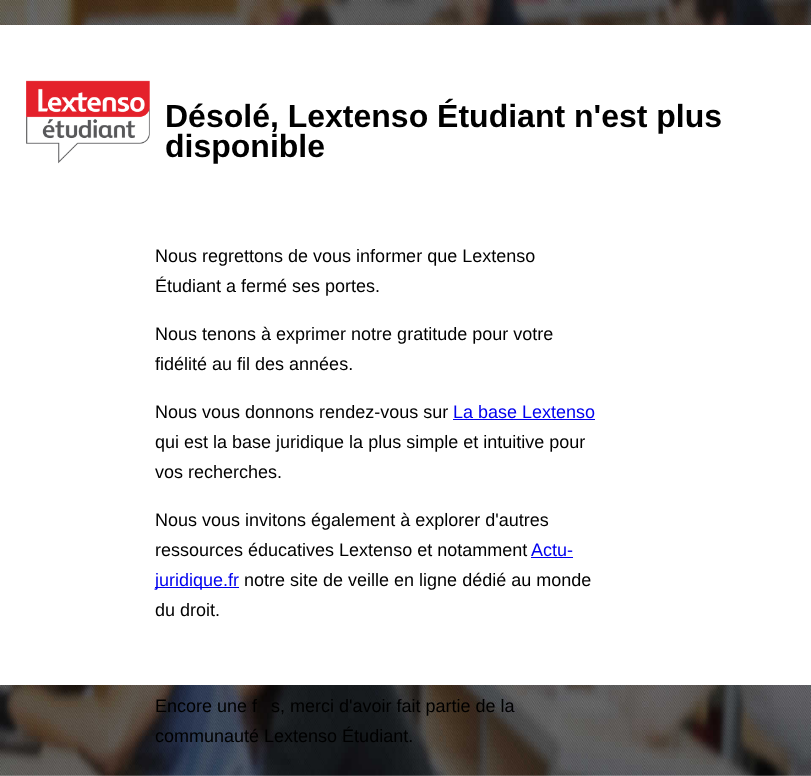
<?xml version="1.0" encoding="UTF-8"?>
<svg xmlns="http://www.w3.org/2000/svg" width="811" height="776">
    <rect width="100%" height="100%" fill="#FFFFFF"/>
    <image x="0" y="0" width="811" height="776" href="img_01.png"/>
    <rect x="0" y="25" width="811" height="660" fill="#FFFFFF"/>
    <image x="26" y="80" width="124" height="84" href="img_02.png"/>
    <text font-family="Liberation Sans" font-size="32" font-weight="700" fill="#000000">
        <tspan x="165" y="127">Désolé, Lextenso Étudiant n'est plus</tspan>
        <tspan x="165" y="157">disponible</tspan>
    </text>
    <text font-family="Liberation Sans" font-size="18" fill="#000000">
        <tspan x="155" y="262">Nous regrettons de vous informer que Lextenso</tspan>
        <tspan x="155" y="292">Étudiant a fermé ses portes.</tspan>
    </text>
    <text font-family="Liberation Sans" font-size="18" fill="#000000">
        <tspan x="155" y="340">Nous tenons à exprimer notre gratitude pour votre</tspan>
        <tspan x="155" y="370">fidélité au fil des années.</tspan>
    </text>
    <text x="155" y="418" font-family="Liberation Sans" font-size="18" fill="#000000">Nous vous donnons rendez-vous sur</text>
    <text x="453" y="418" font-family="Liberation Sans" font-size="18" fill="#0000EE">La base Lextenso</text>
    <rect x="453" y="419" width="142" height="1" fill="#0000EE"/>
    <text font-family="Liberation Sans" font-size="18" fill="#000000">
        <tspan x="155" y="448">qui est la base juridique la plus simple et intuitive pour</tspan>
        <tspan x="155" y="478">vos recherches.</tspan>
    </text>
    <text font-family="Liberation Sans" font-size="18" fill="#000000">
        <tspan x="155" y="526">Nous vous invitons également à explorer d'autres</tspan>
        <tspan x="155" y="556">ressources éducatives Lextenso et notamment</tspan>
    </text>
    <text x="531" y="556" font-family="Liberation Sans" font-size="18" fill="#0000EE">Actu-</text>
    <rect x="531" y="557" width="42" height="1" fill="#0000EE"/>
    <rect x="155" y="587" width="84" height="1" fill="#0000EE"/>
    <text x="155" y="586" font-family="Liberation Sans" font-size="18" fill="#0000EE">juridique.fr</text>
    <text x="244" y="586" font-family="Liberation Sans" font-size="18" fill="#000000">notre site de veille en ligne dédié au monde</text>
    <text x="155" y="616" font-family="Liberation Sans" font-size="18" fill="#000000">du droit.</text>
    <text x="155" y="712" font-family="Liberation Sans" font-size="18" fill="#000000">Encore une f</text>
    <text x="271" y="712" font-family="Liberation Sans" font-size="18" fill="#000000">s, merci d'avoir fait partie de la</text>
    <text x="155" y="742" font-family="Liberation Sans" font-size="18" fill="#000000">communauté Lextenso Étudiant.</text>
</svg>
